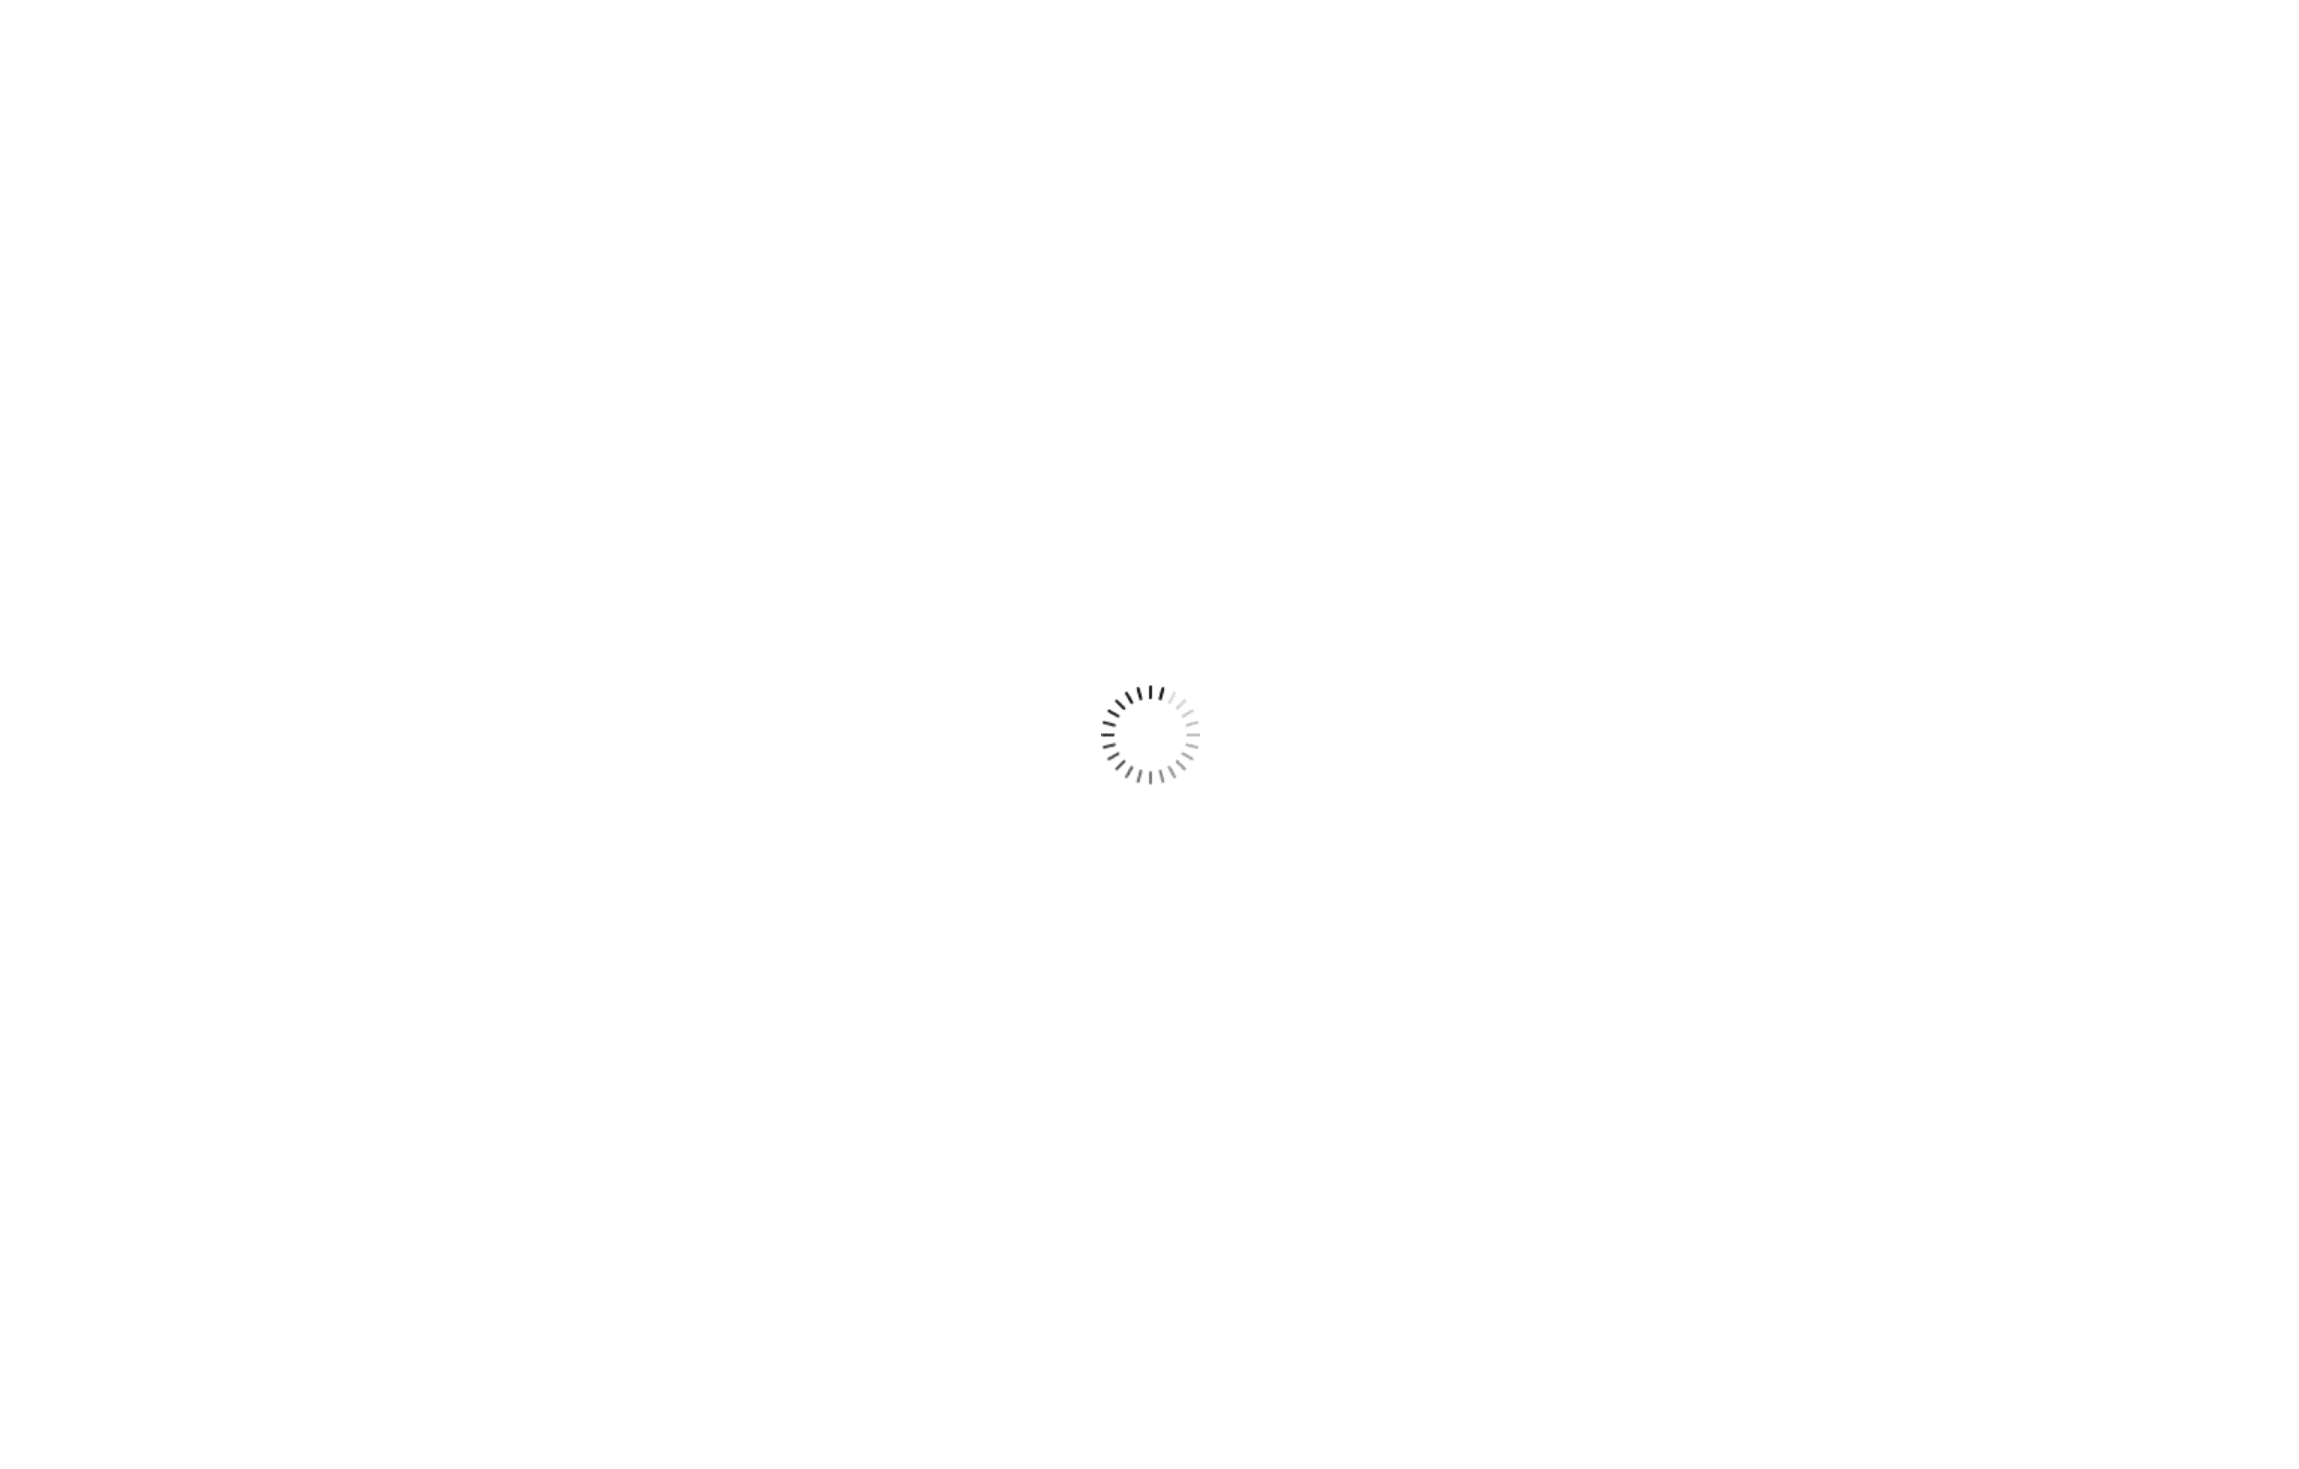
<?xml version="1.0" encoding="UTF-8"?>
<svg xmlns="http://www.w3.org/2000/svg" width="2299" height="1469">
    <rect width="100%" height="100%" fill="#FFFFFF"/>
    <image x="1101" y="685" width="99" height="100" href="img_01.png"/>
</svg>
